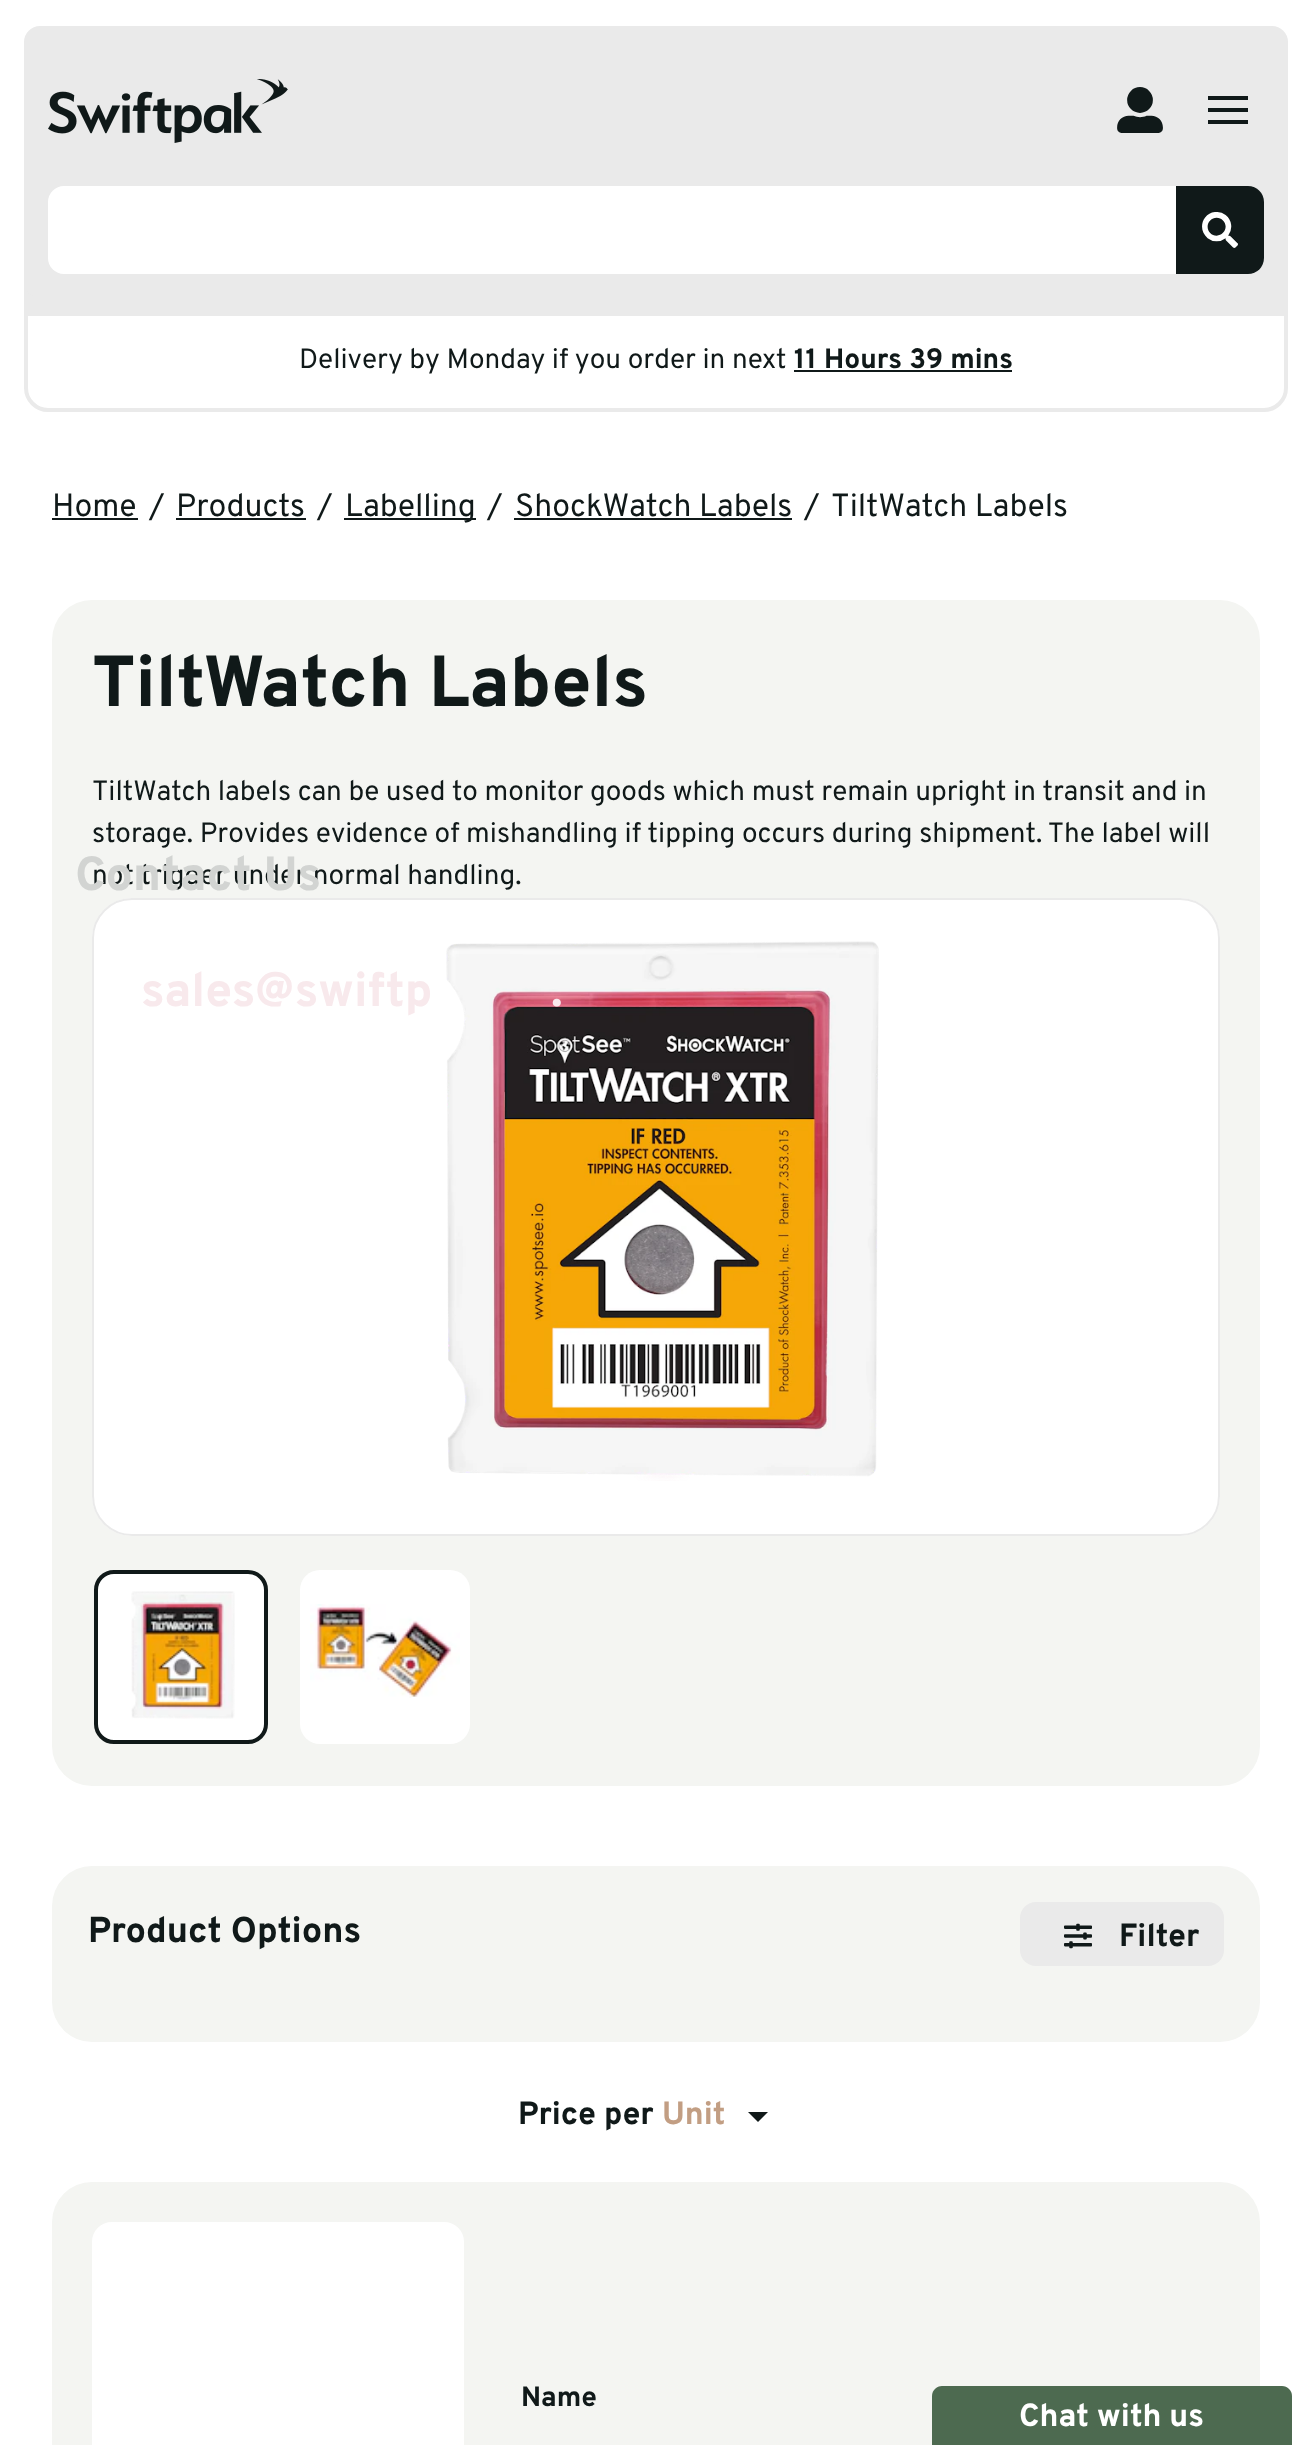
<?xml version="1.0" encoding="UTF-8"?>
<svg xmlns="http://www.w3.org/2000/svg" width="1312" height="2445">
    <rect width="100%" height="100%" fill="#FFFFFF"/>
    <path d="M 26 314 H 1286 V 388 C 1286 400 1276 410 1264 410 H 48 C 36 410 26 400 26 388 Z" fill="none" stroke="#EAEAEA" stroke-width="4"/>
    <rect x="24" y="282" width="1264" height="30" fill="#EAEAEA"/>
    <text x="299" y="368" font-family="Overpass" font-size="28" fill="#101919">Delivery by Monday if you order in next</text>
    <text x="794" y="368" font-family="Overpass" font-size="28" font-weight="800" fill="#101919">11 Hours 39 mins</text>
    <rect x="794" y="370" width="218" height="2" fill="#101919"/>
    <text x="52" y="516" font-family="Overpass" font-size="32" fill="#101919">Home</text>
    <rect x="52" y="518" width="86" height="2" fill="#101919"/>
    <text x="149" y="516" font-family="Overpass" font-size="32" fill="#101919">/</text>
    <text x="176" y="516" font-family="Overpass" font-size="32" fill="#101919">Products</text>
    <rect x="176" y="518" width="130" height="2" fill="#101919"/>
    <text x="317" y="516" font-family="Overpass" font-size="32" fill="#101919">/</text>
    <rect x="344" y="518" width="132" height="2" fill="#101919"/>
    <text x="345" y="516" font-family="Overpass" font-size="32" fill="#101919">Labelling</text>
    <text x="487" y="516" font-family="Overpass" font-size="32" fill="#101919">/</text>
    <text x="515" y="516" font-family="Overpass" font-size="32" fill="#101919">ShockWatch Labels</text>
    <rect x="514" y="518" width="278" height="2" fill="#101919"/>
    <text x="804" y="516" font-family="Overpass" font-size="32" fill="#101919">/</text>
    <text x="831" y="516" font-family="Overpass" font-size="32" fill="#101919">TiltWatch Labels</text>
    <rect x="52" y="600" width="1208" height="1186" rx="40" fill="#F4F5F2"/>
    <text x="92" y="706" font-family="Overpass" font-size="72" font-weight="800" fill="#101919">TiltWatch Labels</text>
    <text font-family="Overpass" font-size="28" fill="#101919">
        <tspan x="92" y="800">TiltWatch labels can be used to monitor goods which must remain upright in transit and in</tspan>
        <tspan x="92" y="842">storage. Provides evidence of mishandling if tipping occurs during shipment. The label will</tspan>
        <tspan x="92" y="884">not trigger under normal handling.</tspan>
    </text>
    <rect x="92" y="898" width="1128" height="638" rx="40" fill="#FFFFFF"/>
    <image x="446" y="941" width="433" height="540" href="img_01.png"/>
    <rect x="93" y="899" width="1126" height="636" rx="39" fill="none" stroke="#EAEAEA" stroke-width="2"/>
    <rect x="96" y="1572" width="170" height="170" rx="18" fill="#FFFFFF" stroke="#101919" stroke-width="4"/>
    <image x="131" y="1591" width="104" height="128" href="img_02.png"/>
    <rect x="300" y="1570" width="170" height="174" rx="20" fill="#FFFFFF"/>
    <image x="310" y="1604" width="150" height="94" href="img_03.png"/>
    <rect x="52" y="1866" width="1208" height="176" rx="40" fill="#F4F5F2"/>
    <text x="88" y="1942" font-family="Overpass" font-size="36" font-weight="800" fill="#101919">Product Options</text>
    <rect x="1020" y="1902" width="204" height="64" rx="16" fill="#EAEAEA"/>
    <image x="1064" y="1923" width="28" height="26" href="img_04.png"/>
    <text x="1119" y="1946" font-family="Overpass" font-size="32" font-weight="800" fill="#101919">Filter</text>
    <text x="518" y="2124" font-family="Overpass" font-size="32" font-weight="800" fill="#101919">Price per</text>
    <text x="662" y="2124" font-family="Overpass" font-size="32" font-weight="800" fill="#C29E83">Unit</text>
    <image x="748" y="2112" width="20" height="10" href="img_05.png"/>
    <rect x="52" y="2182" width="1208" height="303" rx="40" fill="#F4F5F2"/>
    <rect x="93" y="2223" width="370" height="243" rx="19" fill="#FFFFFF" stroke="#FFFFFF" stroke-width="2"/>
    <text x="521" y="2406" font-family="Overpass" font-size="28" font-weight="800" fill="#101919">Name</text>
    <rect x="24" y="26" width="1264" height="272" rx="16" fill="#EAEAEA"/>
    <image x="48" y="79" width="240" height="64" href="img_06.png"/>
    <image x="1117" y="87" width="46" height="46" href="img_07.png"/>
    <rect x="1208" y="108" width="40" height="4" fill="#101919"/>
    <rect x="1208" y="96" width="40" height="4" fill="#101919"/>
    <rect x="1208" y="120" width="40" height="4" fill="#101919"/>
    <rect x="48" y="186" width="1216" height="88" rx="16" fill="#FFFFFF"/>
    <path d="M 1176 186 H 1248 C 1257 186 1264 193 1264 202 V 258 C 1264 267 1257 274 1248 274 H 1176 Z" fill="#101919"/>
    <image x="1202" y="212" width="36" height="36" href="img_08.png"/>
    <text x="75" y="890" font-family="Overpass" font-size="48" font-weight="800" fill="#D2D4D2">Contact Us</text>
    <text x="141" y="1006" font-family="Overpass" font-size="48" font-weight="800" fill="#F8E9EC">sales@swiftp</text>
    <text x="551" y="1006" font-family="Overpass" font-size="48" font-weight="800" fill="#F8E9EC">.</text>
    <path d="M 942 2386 H 1282 C 1287.5 2386 1292 2390.5 1292 2396 V 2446 H 932 V 2396 C 932 2390.5 936.5 2386 942 2386 Z" fill="#4D6A50"/>
    <text x="1019" y="2426" font-family="Overpass" font-size="32" font-weight="800" fill="#FFFFFF">Chat with us</text>
</svg>
